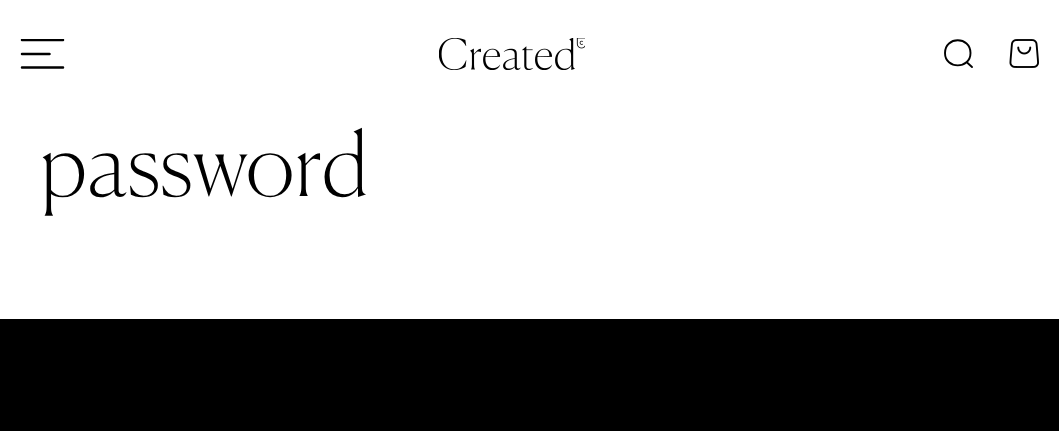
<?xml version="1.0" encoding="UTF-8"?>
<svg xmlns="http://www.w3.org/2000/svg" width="1059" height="431">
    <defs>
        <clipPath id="clip1"><rect x="20" y="39" width="45" height="30"/></clipPath>
    </defs>
    <rect width="100%" height="100%" fill="#FFFFFF"/>
    <g clip-path="url(#clip1)">
        <path d="M 22 54 H 49.5 M 22 40 H 63 M 22 67.5 H 63" fill="none" stroke="#000000" stroke-width="2.5" stroke-linecap="round" stroke-linejoin="round"/>
    </g>
    <image x="439" y="38" width="146" height="32" href="img_01.png"/>
    <path d="M 972 67 L 966.5 62 M 970.5 53 C 970.5 69.5 945 69.5 945 53 C 945 36 970.5 36 970.5 53 Z" fill="none" stroke="#000000" stroke-width="1.9" stroke-linecap="round" stroke-linejoin="round"/>
    <image x="1009" y="39" width="30" height="29" href="img_02.png"/>
    <text x="40" y="196" font-family="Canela" font-size="87.5" font-weight="100" fill="#000000">password</text>
    <rect x="0" y="319" width="1059" height="112" fill="#000000"/>
</svg>
